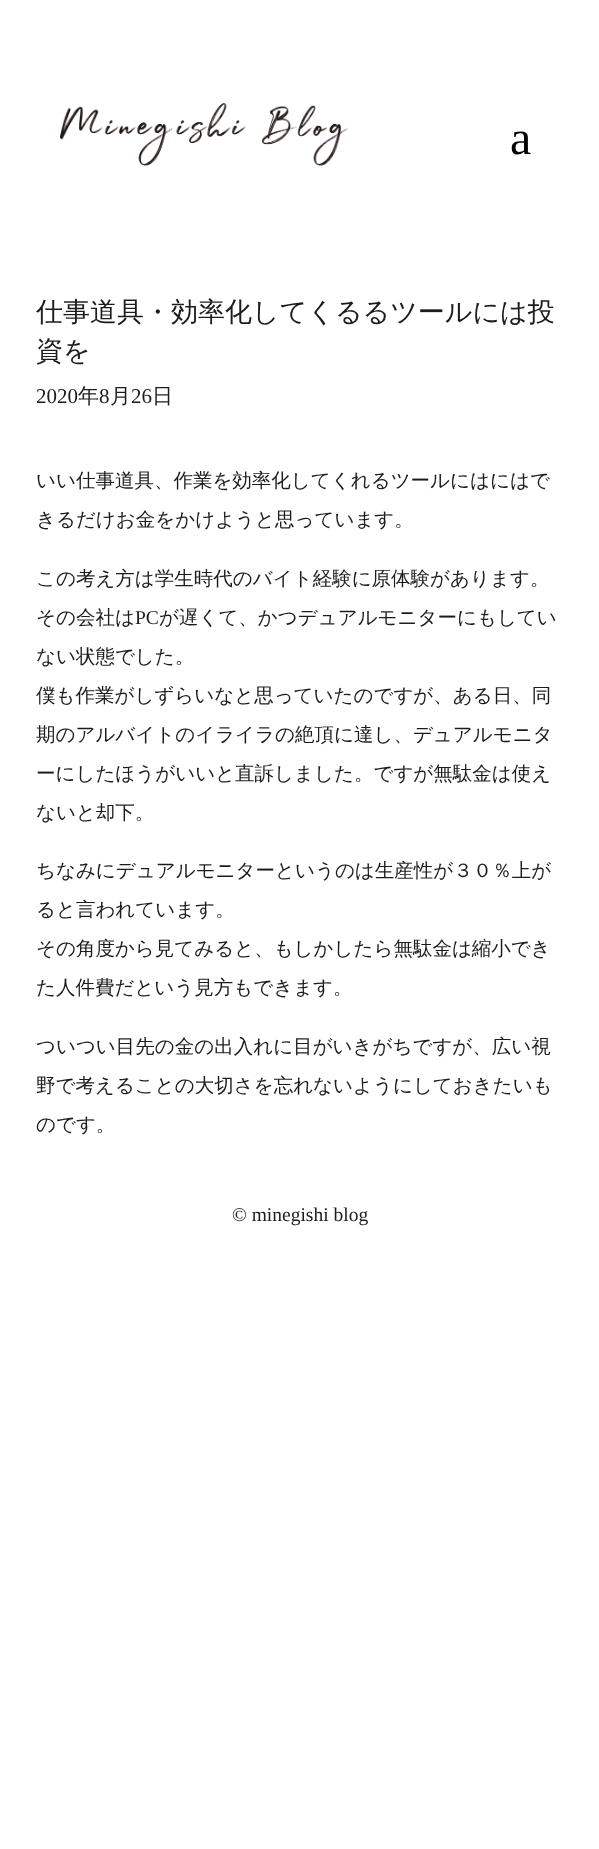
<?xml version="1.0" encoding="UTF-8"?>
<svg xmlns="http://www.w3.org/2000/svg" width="599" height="1849">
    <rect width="100%" height="100%" fill="#FFFFFF"/>
    <image x="60" y="103" width="289" height="63" href="img_01.png"/>
    <text x="510" y="154" font-family="Liberation Serif" font-size="48" fill="#000000">a</text>
    <text font-family="WenQuanYi Zen Hei" font-size="27" font-weight="500" fill="#1C1C1C">
        <tspan x="36" y="321">仕事道具・効率化してくるるツールには投</tspan>
        <tspan x="36" y="360">資を</tspan>
    </text>
    <text x="36" y="403" font-family="Liberation Serif" font-size="21" fill="#1C1C1C">2020</text>
    <text x="78" y="403" font-family="WenQuanYi Zen Hei" font-size="21" font-weight="500" fill="#1C1C1C">年</text>
    <text x="99" y="403" font-family="Liberation Serif" font-size="21" fill="#1C1C1C">8</text>
    <text x="110" y="403" font-family="WenQuanYi Zen Hei" font-size="21" font-weight="500" fill="#1C1C1C">月</text>
    <text x="131" y="403" font-family="Liberation Serif" font-size="21" fill="#1C1C1C">26</text>
    <text x="152" y="403" font-family="WenQuanYi Zen Hei" font-size="21" font-weight="500" fill="#1C1C1C">日</text>
    <text x="36" y="487" font-family="WenQuanYi Zen Hei" font-size="19.5" font-weight="500" fill="#1C1C1C">いい仕事道具、作業を効率化してくれるツールにはにはで</text>
    <text x="36" y="526" font-family="WenQuanYi Zen Hei" font-size="19.5" font-weight="500" fill="#1C1C1C">きるだけお金をかけようと思っています。</text>
    <text x="36" y="585" font-family="WenQuanYi Zen Hei" font-size="19.5" font-weight="500" fill="#1C1C1C">この考え方は学生時代のバイト経験に原体験があります。</text>
    <text x="36" y="624" font-family="WenQuanYi Zen Hei" font-size="19.5" font-weight="500" fill="#1C1C1C">その会社は</text>
    <text x="135" y="624" font-family="Liberation Serif" font-size="19.5" fill="#1C1C1C">PC</text>
    <text x="159" y="624" font-family="WenQuanYi Zen Hei" font-size="19.5" font-weight="500" fill="#1C1C1C">が遅くて、かつデュアルモニターにもしてい</text>
    <text x="36" y="663" font-family="WenQuanYi Zen Hei" font-size="19.5" font-weight="500" fill="#1C1C1C">ない状態でした。</text>
    <text x="36" y="702" font-family="WenQuanYi Zen Hei" font-size="19.5" font-weight="500" fill="#1C1C1C">僕も作業がしずらいなと思っていたのですが、ある日、同</text>
    <text x="36" y="741" font-family="WenQuanYi Zen Hei" font-size="19.5" font-weight="500" fill="#1C1C1C">期のアルバイトのイライラの絶頂に達し、デュアルモニタ</text>
    <text x="36" y="780" font-family="WenQuanYi Zen Hei" font-size="19.5" font-weight="500" fill="#1C1C1C">ーにしたほうがいいと直訴しました。ですが無駄金は使え</text>
    <text x="36" y="819" font-family="WenQuanYi Zen Hei" font-size="19.5" font-weight="500" fill="#1C1C1C">ないと却下。</text>
    <text x="36" y="877" font-family="WenQuanYi Zen Hei" font-size="19.5" font-weight="500" fill="#1C1C1C">ちなみにデュアルモニターというのは生産性が３０％上が</text>
    <text x="36" y="916" font-family="WenQuanYi Zen Hei" font-size="19.5" font-weight="500" fill="#1C1C1C">ると言われています。</text>
    <text x="36" y="955" font-family="WenQuanYi Zen Hei" font-size="19.5" font-weight="500" fill="#1C1C1C">その角度から見てみると、もしかしたら無駄金は縮小でき</text>
    <text x="36" y="994" font-family="WenQuanYi Zen Hei" font-size="19.5" font-weight="500" fill="#1C1C1C">た人件費だという見方もできます。</text>
    <text x="36" y="1053" font-family="WenQuanYi Zen Hei" font-size="19.5" font-weight="500" fill="#1C1C1C">ついつい目先の金の出入れに目がいきがちですが、広い視</text>
    <text x="36" y="1092" font-family="WenQuanYi Zen Hei" font-size="19.5" font-weight="500" fill="#1C1C1C">野で考えることの大切さを忘れないようにしておきたいも</text>
    <text x="36" y="1131" font-family="WenQuanYi Zen Hei" font-size="19.5" font-weight="500" fill="#1C1C1C">のです。</text>
    <text x="232" y="1221" font-family="Liberation Serif" font-size="19.5" fill="#1C1C1C">© minegishi blog</text>
</svg>
